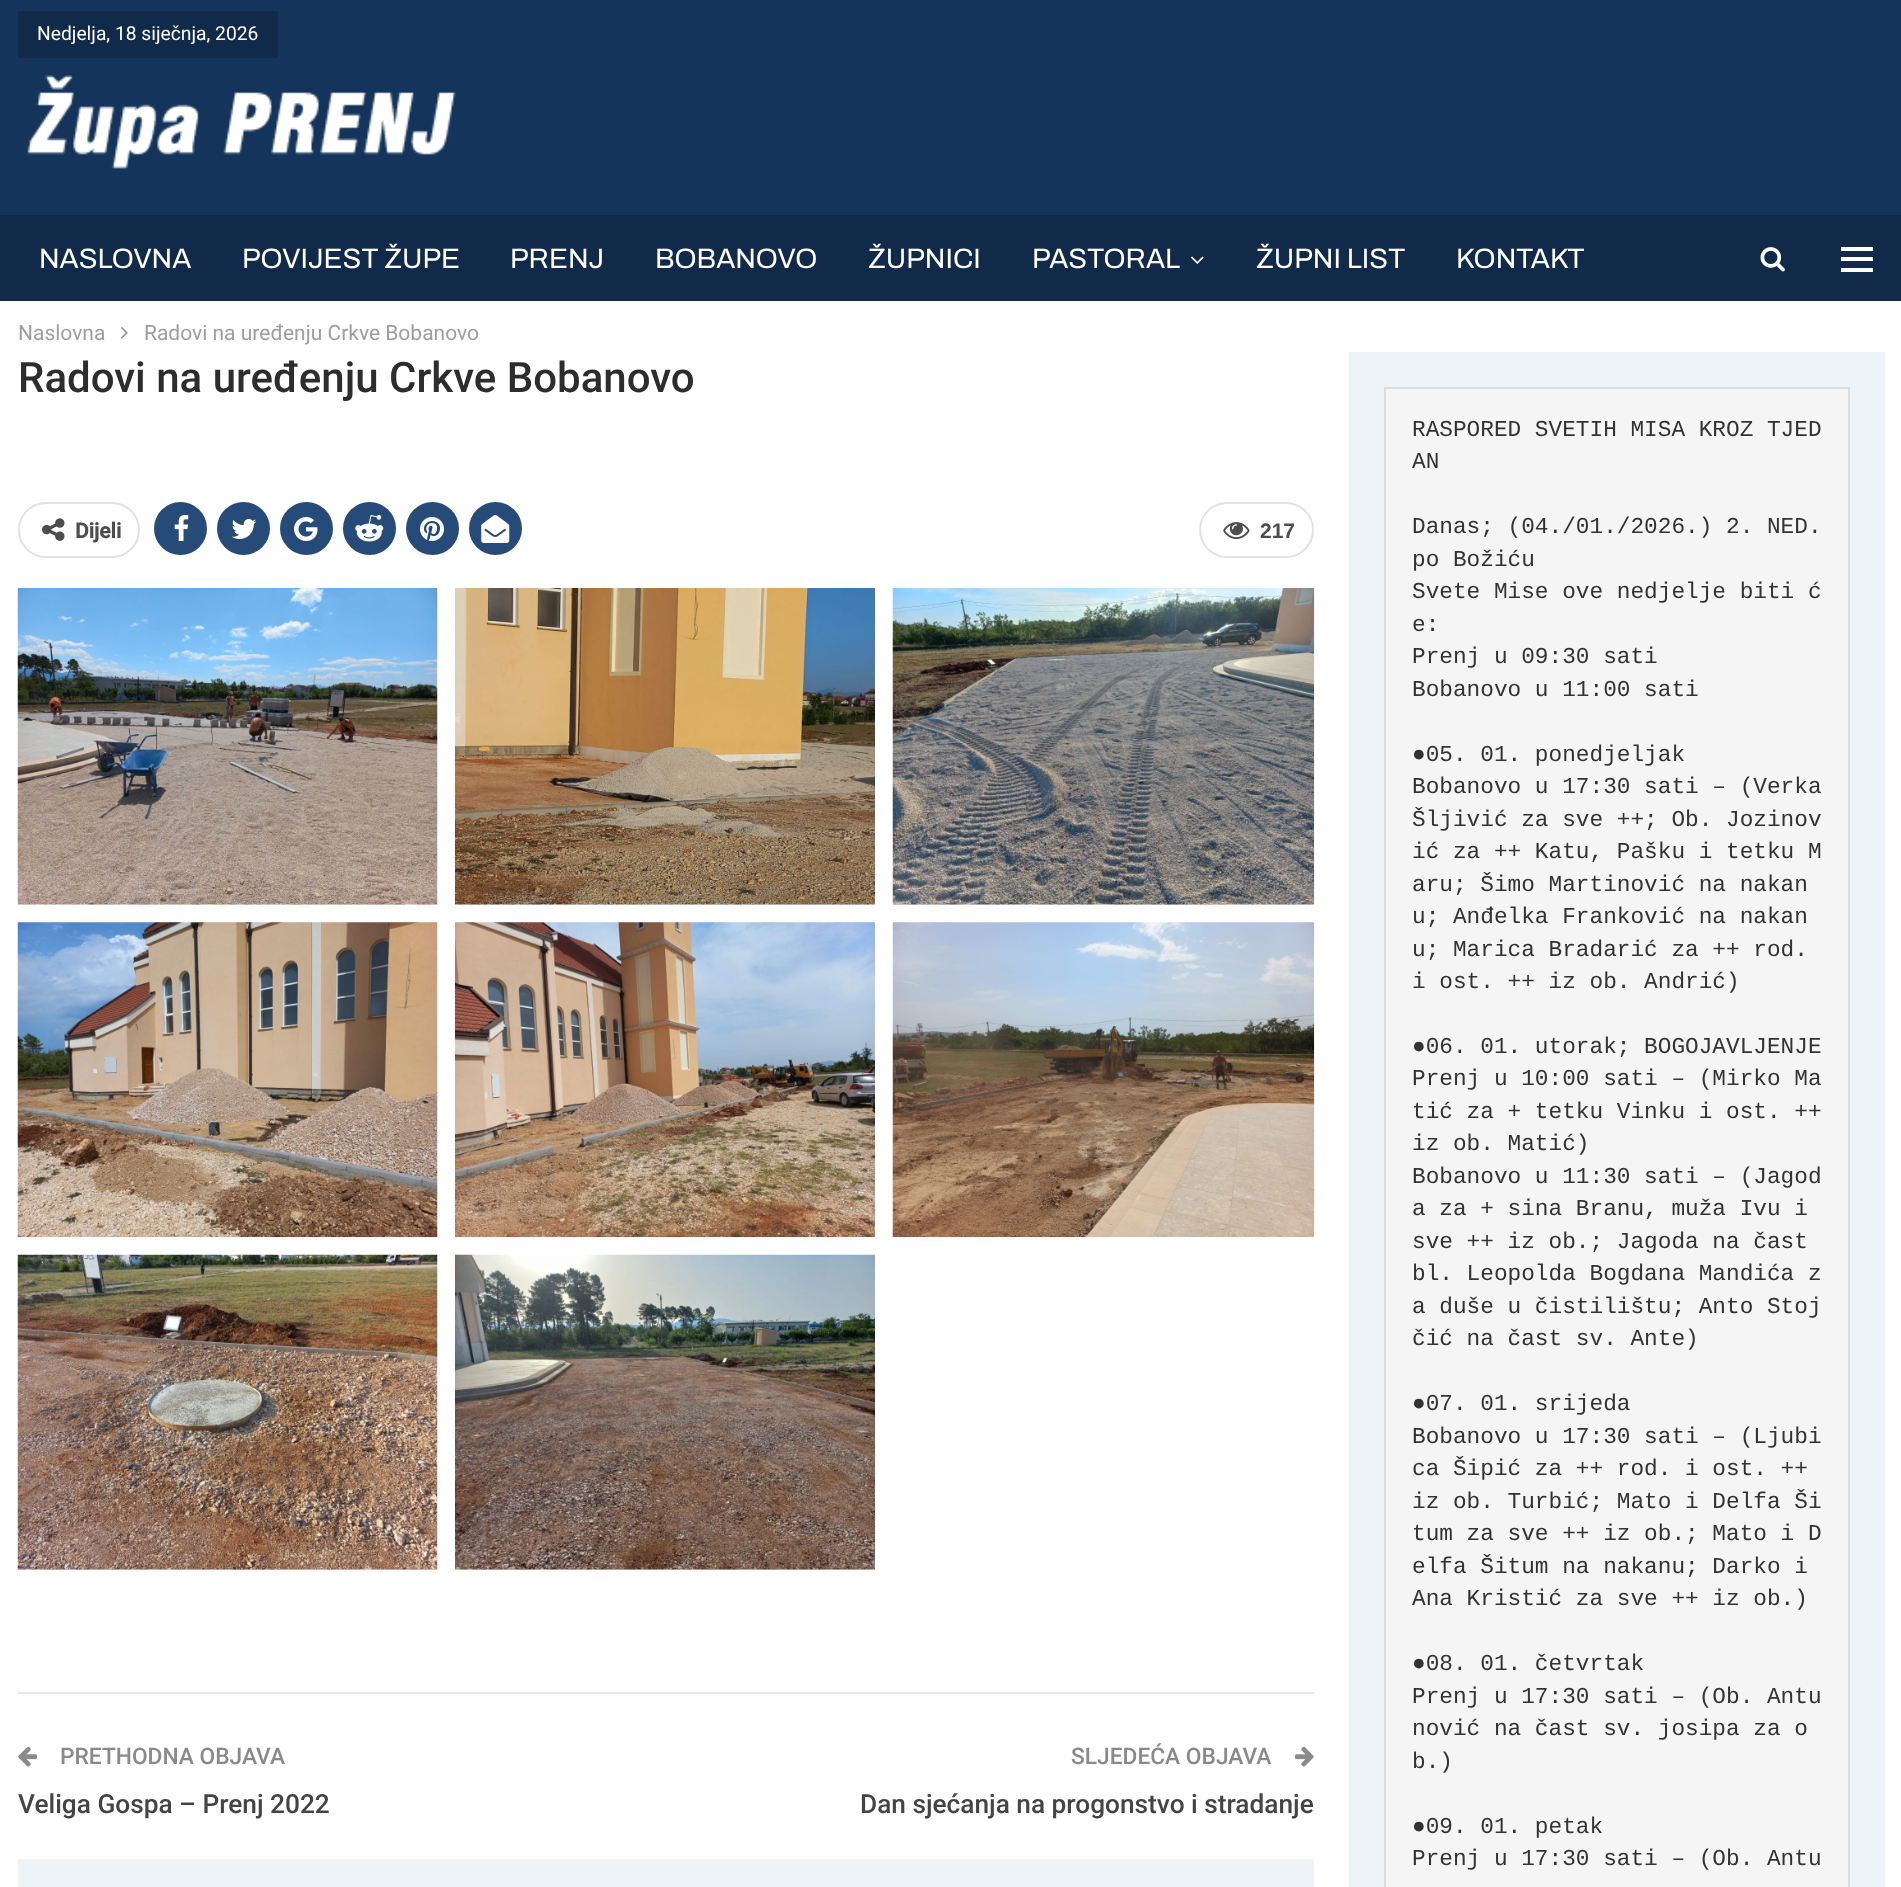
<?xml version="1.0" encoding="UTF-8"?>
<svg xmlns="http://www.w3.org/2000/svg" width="1901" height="1887">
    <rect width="100%" height="100%" fill="#FFFFFF"/>
    <rect x="0" y="0" width="1901" height="215" fill="#15345C"/>
    <rect x="18" y="11" width="260" height="47" fill="#112A4A"/>
    <text x="37" y="40" font-family="Roboto" font-size="19.25" fill="#FFFFFF">Nedjelja, 18 siječnja, 2026</text>
    <image x="27" y="75" width="429" height="94" href="img_01.png"/>
    <rect x="0" y="215" width="1901" height="86" fill="#112A4A"/>
    <text x="39" y="268" font-family="Archivo" font-size="28" fill="#FFFFFF">NASLOVNA</text>
    <text x="242" y="268" font-family="Archivo" font-size="28" fill="#FFFFFF">POVIJEST ŽUPE</text>
    <text x="510" y="268" font-family="Archivo" font-size="28" fill="#FFFFFF">PRENJ</text>
    <text x="655" y="268" font-family="Archivo" font-size="28" fill="#FFFFFF">BOBANOVO</text>
    <text x="868" y="268" font-family="Archivo" font-size="28" fill="#FFFFFF">ŽUPNICI</text>
    <text x="1032" y="268" font-family="Archivo" font-size="28" fill="#FFFFFF">PASTORAL</text>
    <image x="1191" y="256" width="13" height="8" href="img_02.png"/>
    <text x="1256" y="268" font-family="Archivo" font-size="28" fill="#FFFFFF">ŽUPNI LIST</text>
    <text x="1456" y="268" font-family="Archivo" font-size="28" fill="#FFFFFF">KONTAKT</text>
    <image x="1760" y="247" width="25" height="25" href="img_03.png"/>
    <rect x="1841" y="257" width="32" height="4" fill="#FFFFFF"/>
    <rect x="1841" y="247" width="32" height="4" fill="#FFFFFF"/>
    <rect x="1841" y="268" width="32" height="4" fill="#FFFFFF"/>
    <text x="18" y="340" font-family="Roboto" font-size="21" fill="#9E9E9E">Naslovna</text>
    <image x="121" y="327" width="7" height="12" href="img_04.png"/>
    <text x="144" y="340" font-family="Roboto" font-size="21" fill="#9E9E9E">Radovi na uređenju Crkve Bobanovo</text>
    <text x="18" y="392" font-family="Roboto" font-size="42" font-weight="500" fill="#2D2D2D">Radovi na uređenju Crkve Bobanovo</text>
    <rect x="19" y="503" width="120" height="54" rx="27" fill="none" stroke="#E2E2E2" stroke-width="2"/>
    <image x="42" y="518" width="23" height="23" href="img_05.png"/>
    <text x="75" y="538" font-family="Roboto" font-size="21" font-weight="700" fill="#4D4D4D">Dijeli</text>
    <circle cx="180.5" cy="528.5" r="26.5" fill="#274B79"/>
    <image x="174" y="515" width="15" height="26" href="img_06.png"/>
    <circle cx="243.5" cy="528.5" r="26.5" fill="#274B79"/>
    <image x="231" y="519" width="26" height="20" href="img_07.png"/>
    <circle cx="306.5" cy="528.5" r="26.5" fill="#274B79"/>
    <image x="294" y="517" width="24" height="24" href="img_08.png"/>
    <circle cx="369.5" cy="528.5" r="26.5" fill="#274B79"/>
    <image x="355" y="515" width="29" height="27" href="img_09.png"/>
    <circle cx="432.5" cy="528.5" r="26.5" fill="#274B79"/>
    <image x="420" y="517" width="24" height="24" href="img_10.png"/>
    <circle cx="495.5" cy="528.5" r="26.5" fill="#274B79"/>
    <image x="481" y="515" width="29" height="28" href="img_11.png"/>
    <rect x="1200" y="503" width="113" height="54" rx="27" fill="none" stroke="#E2E2E2" stroke-width="2"/>
    <image x="1223" y="522" width="27" height="17" href="img_12.png"/>
    <text x="1260" y="538" font-family="Liberation Sans" font-size="21" font-weight="700" fill="#4D4D4D">217</text>
    <image x="17" y="588" width="421" height="317" href="img_13.png"/>
    <image x="455" y="588" width="420" height="317" href="img_14.png"/>
    <image x="892" y="588" width="423" height="317" href="img_15.png"/>
    <image x="17" y="922" width="421" height="316" href="img_16.png"/>
    <image x="455" y="922" width="420" height="316" href="img_17.png"/>
    <image x="892" y="922" width="423" height="316" href="img_18.png"/>
    <image x="17" y="1254" width="421" height="316" href="img_19.png"/>
    <image x="455" y="1254" width="420" height="316" href="img_20.png"/>
    <rect x="18" y="1692" width="1296" height="2" fill="#E8E8E8"/>
    <image x="18" y="1746" width="19" height="21" href="img_21.png"/>
    <text x="60" y="1764" font-family="Roboto" font-size="22.75" font-weight="500" fill="#8A8A8A">PRETHODNA OBJAVA</text>
    <text x="18" y="1813" font-family="Roboto" font-size="26.25" font-weight="500" fill="#444444">Veliga Gospa – Prenj 2022</text>
    <text x="1071" y="1764" font-family="Roboto" font-size="22.75" font-weight="500" fill="#8A8A8A">SLJEDEĆA OBJAVA</text>
    <image x="1295" y="1746" width="19" height="21" href="img_22.png"/>
    <text x="860" y="1813" font-family="Roboto" font-size="26.25" font-weight="500" fill="#444444">Dan sjećanja na progonstvo i stradanje</text>
    <rect x="18" y="1859" width="1296" height="28" fill="#EDF3F7"/>
    <rect x="1349" y="352" width="536" height="1535" fill="#EDF3F7"/>
    <rect x="1385" y="388" width="464" height="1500" fill="#F5F5F5" stroke="#DCDCDC" stroke-width="2"/>
    <text font-family="Liberation Mono" font-size="22.75" fill="#333333">
        <tspan x="1412" y="436">RASPORED SVETIH MISA KROZ TJED</tspan>
        <tspan x="1412" y="468">AN</tspan>
    </text>
    <text font-family="Liberation Mono" font-size="22.75" fill="#333333">
        <tspan x="1412" y="533">Danas; (04./01./2026.) 2. NED.</tspan>
        <tspan x="1412" y="566">po Božiću</tspan>
        <tspan x="1412" y="598">Svete Mise ove nedjelje biti ć</tspan>
        <tspan x="1412" y="631">e:</tspan>
        <tspan x="1412" y="663">Prenj u 09:30 sati</tspan>
        <tspan x="1412" y="696">Bobanovo u 11:00 sati</tspan>
    </text>
    <text font-family="Liberation Mono" font-size="22.75" fill="#333333">
        <tspan x="1412" y="761">●05. 01. ponedjeljak</tspan>
        <tspan x="1412" y="793">Bobanovo u 17:30 sati – (Verka</tspan>
        <tspan x="1412" y="826">Šljivić za sve ++; Ob. Jozinov</tspan>
        <tspan x="1412" y="858">ić za ++ Katu, Pašku i tetku M</tspan>
        <tspan x="1412" y="891">aru; Šimo Martinović na nakan</tspan>
        <tspan x="1412" y="923">u; Anđelka Franković na nakan</tspan>
        <tspan x="1412" y="956">u; Marica Bradarić za ++ rod.</tspan>
        <tspan x="1412" y="988">i ost. ++ iz ob. Andrić)</tspan>
    </text>
    <text font-family="Liberation Mono" font-size="22.75" fill="#333333">
        <tspan x="1412" y="1053">●06. 01. utorak; BOGOJAVLJENJE</tspan>
        <tspan x="1412" y="1085">Prenj u 10:00 sati – (Mirko Ma</tspan>
        <tspan x="1412" y="1118">tić za + tetku Vinku i ost. ++</tspan>
        <tspan x="1412" y="1150">iz ob. Matić)</tspan>
        <tspan x="1412" y="1183">Bobanovo u 11:30 sati – (Jagod</tspan>
        <tspan x="1412" y="1215">a za + sina Branu, muža Ivu i</tspan>
        <tspan x="1412" y="1248">sve ++ iz ob.; Jagoda na čast</tspan>
        <tspan x="1412" y="1280">bl. Leopolda Bogdana Mandića z</tspan>
        <tspan x="1412" y="1313">a duše u čistilištu; Anto Stoj</tspan>
        <tspan x="1412" y="1345">čić na čast sv. Ante)</tspan>
    </text>
    <text font-family="Liberation Mono" font-size="22.75" fill="#333333">
        <tspan x="1412" y="1410">●07. 01. srijeda</tspan>
        <tspan x="1412" y="1443">Bobanovo u 17:30 sati – (Ljubi</tspan>
        <tspan x="1412" y="1475">ca Šipić za ++ rod. i ost. ++</tspan>
        <tspan x="1412" y="1508">iz ob. Turbić; Mato i Delfa Ši</tspan>
        <tspan x="1412" y="1540">tum za sve ++ iz ob.; Mato i D</tspan>
        <tspan x="1412" y="1573">elfa Šitum na nakanu; Darko i</tspan>
        <tspan x="1412" y="1605">Ana Kristić za sve ++ iz ob.)</tspan>
    </text>
    <text font-family="Liberation Mono" font-size="22.75" fill="#333333">
        <tspan x="1412" y="1670">●08. 01. četvrtak</tspan>
        <tspan x="1412" y="1703">Prenj u 17:30 sati – (Ob. Antu</tspan>
        <tspan x="1412" y="1735">nović na čast sv. josipa za o</tspan>
        <tspan x="1412" y="1768">b.)</tspan>
    </text>
    <text font-family="Liberation Mono" font-size="22.75" fill="#333333">
        <tspan x="1412" y="1833">●09. 01. petak</tspan>
        <tspan x="1412" y="1865">Prenj u 17:30 sati – (Ob. Antu</tspan>
    </text>
</svg>
